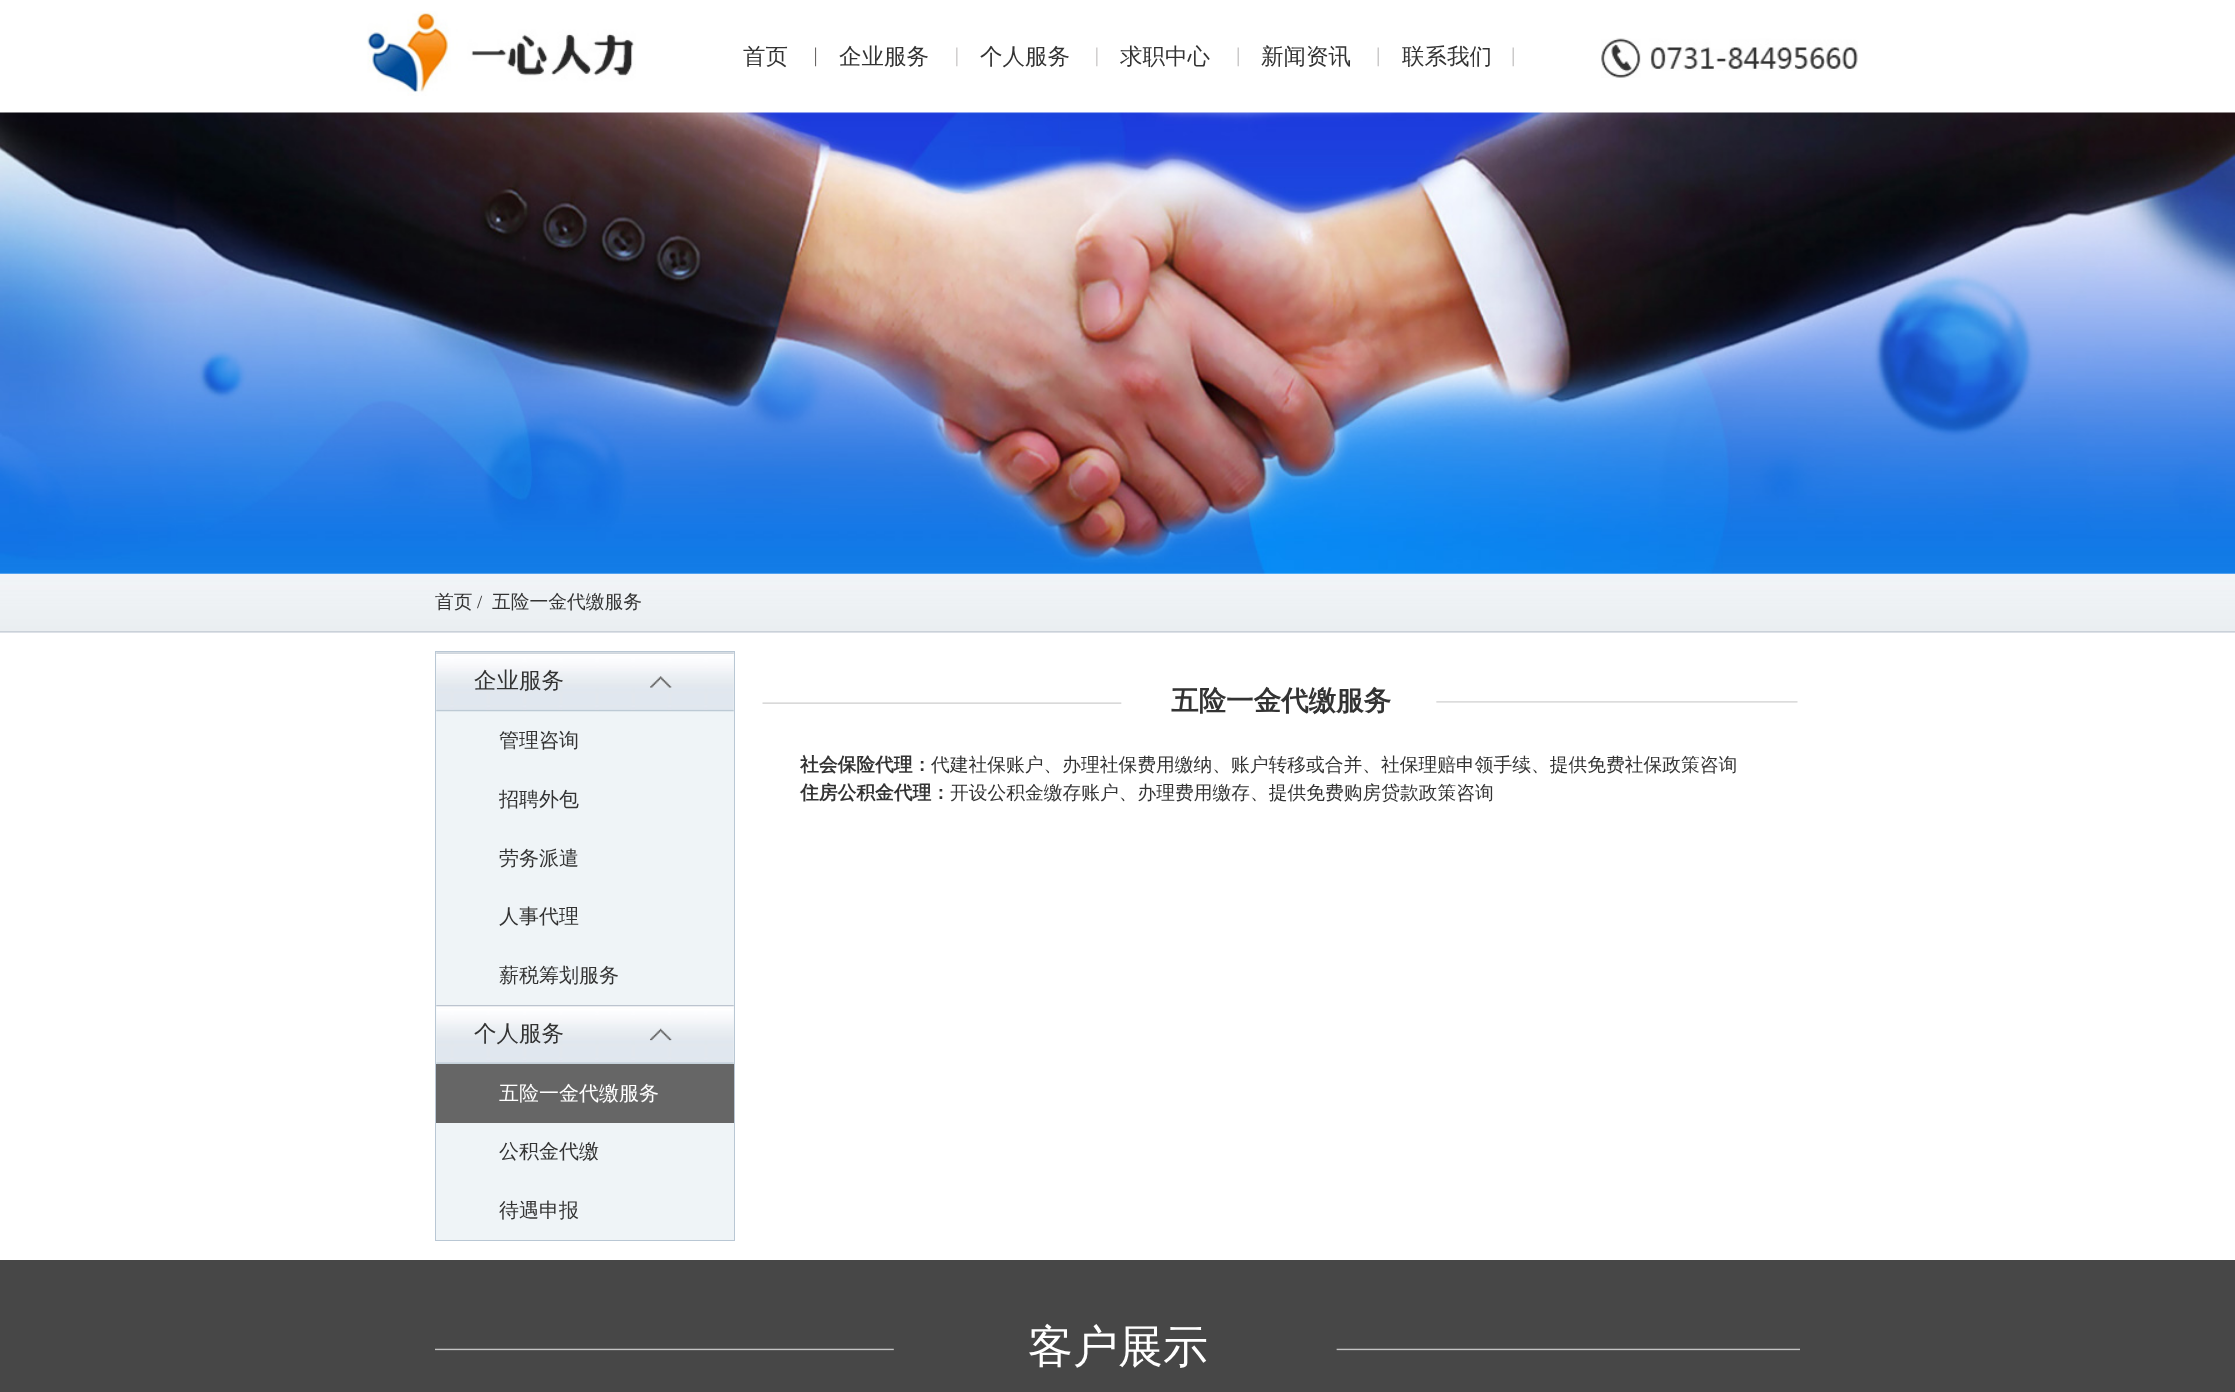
<?xml version="1.0" encoding="UTF-8"?>
<svg xmlns="http://www.w3.org/2000/svg" width="2235" height="1392">
    <rect width="100%" height="100%" fill="#FFFFFF"/>
    <image x="367" y="11" width="269" height="85" href="img_01.png"/>
    <text x="743" y="64" font-family="WenQuanYi Zen Hei" font-size="22.5" font-weight="500" fill="#333333">首页</text>
    <image x="815" y="47" width="2" height="20" href="img_02.png"/>
    <text x="839" y="64" font-family="WenQuanYi Zen Hei" font-size="22.5" font-weight="500" fill="#333333">企业服务</text>
    <image x="956" y="47" width="2" height="20" href="img_03.png"/>
    <text x="980" y="64" font-family="WenQuanYi Zen Hei" font-size="22.5" font-weight="500" fill="#333333">个人服务</text>
    <image x="1096" y="47" width="2" height="20" href="img_03.png"/>
    <text x="1120" y="64" font-family="WenQuanYi Zen Hei" font-size="22.5" font-weight="500" fill="#333333">求职中心</text>
    <image x="1237" y="47" width="2" height="20" href="img_04.png"/>
    <text x="1261" y="64" font-family="WenQuanYi Zen Hei" font-size="22.5" font-weight="500" fill="#333333">新闻资讯</text>
    <image x="1377" y="47" width="2" height="20" href="img_04.png"/>
    <text x="1402" y="64" font-family="WenQuanYi Zen Hei" font-size="22.5" font-weight="500" fill="#333333">联系我们</text>
    <image x="1512" y="47" width="2" height="20" href="img_04.png"/>
    <image x="1601" y="38" width="257" height="40" href="img_05.png"/>
    <image x="0" y="112" width="2235" height="462" href="img_06.png"/>
    <image x="0" y="574" width="2235" height="59" href="img_07.png"/>
    <text x="435" y="608" font-family="WenQuanYi Zen Hei" font-size="18.75" font-weight="500" fill="#333333">首页</text>
    <text x="477" y="608" font-family="Liberation Serif" font-size="18.75" fill="#333333">/</text>
    <text x="492" y="608" font-family="WenQuanYi Zen Hei" font-size="18.75" font-weight="500" fill="#333333">五险一金代缴服务</text>
    <rect x="435.5" y="651.5" width="299" height="589" fill="#EFF4F7" stroke="#B9C7D4"/>
    <image x="436" y="652" width="298" height="60" href="img_08.png"/>
    <text x="474" y="688" font-family="WenQuanYi Zen Hei" font-size="22.5" font-weight="500" fill="#333333">企业服务</text>
    <image x="650" y="676" width="22" height="12" href="img_09.png"/>
    <text x="499" y="747" font-family="WenQuanYi Zen Hei" font-size="20" font-weight="500" fill="#333333">管理咨询</text>
    <text x="499" y="806" font-family="WenQuanYi Zen Hei" font-size="20" font-weight="500" fill="#333333">招聘外包</text>
    <text x="499" y="865" font-family="WenQuanYi Zen Hei" font-size="20" font-weight="500" fill="#333333">劳务派遣</text>
    <text x="499" y="923" font-family="WenQuanYi Zen Hei" font-size="20" font-weight="500" fill="#333333">人事代理</text>
    <text x="499" y="982" font-family="WenQuanYi Zen Hei" font-size="20" font-weight="500" fill="#333333">薪税筹划服务</text>
    <image x="436" y="1005" width="298" height="59" href="img_10.png"/>
    <text x="474" y="1041" font-family="WenQuanYi Zen Hei" font-size="22.5" font-weight="500" fill="#333333">个人服务</text>
    <image x="650" y="1028" width="22" height="13" href="img_11.png"/>
    <rect x="436" y="1064" width="298" height="59" fill="#666666"/>
    <text x="499" y="1100" font-family="WenQuanYi Zen Hei" font-size="20" font-weight="500" fill="#FFFFFF">五险一金代缴服务</text>
    <text x="499" y="1158" font-family="WenQuanYi Zen Hei" font-size="20" font-weight="500" fill="#333333">公积金代缴</text>
    <text x="499" y="1217" font-family="WenQuanYi Zen Hei" font-size="20" font-weight="500" fill="#333333">待遇申报</text>
    <image x="762" y="701" width="1036" height="3" href="img_12.png"/>
    <text x="1171" y="710" font-family="WenQuanYi Zen Hei" font-size="27.5" font-weight="700" fill="#333333">五险一金代缴服务</text>
    <text x="800" y="771" font-family="WenQuanYi Zen Hei" font-size="18.75" font-weight="700" fill="#333333">社会保险代理：</text>
    <text x="931" y="771" font-family="WenQuanYi Zen Hei" font-size="18.75" font-weight="500" fill="#333333">代建社保账户、办理社保费用缴纳、账户转移或合并、社保理赔申领手续、提供免费社保政策咨询</text>
    <text x="800" y="799" font-family="WenQuanYi Zen Hei" font-size="18.75" font-weight="700" fill="#333333">住房公积金代理：</text>
    <text x="950" y="799" font-family="WenQuanYi Zen Hei" font-size="18.75" font-weight="500" fill="#333333">开设公积金缴存账户、办理费用缴存、提供免费购房贷款政策咨询</text>
    <rect x="0" y="1260" width="2235" height="132" fill="#474747"/>
    <image x="435" y="1348" width="1365" height="3" href="img_13.png"/>
    <text x="1028" y="1362" font-family="WenQuanYi Zen Hei" font-size="45" font-weight="500" fill="#FFFFFF">客户展示</text>
</svg>
